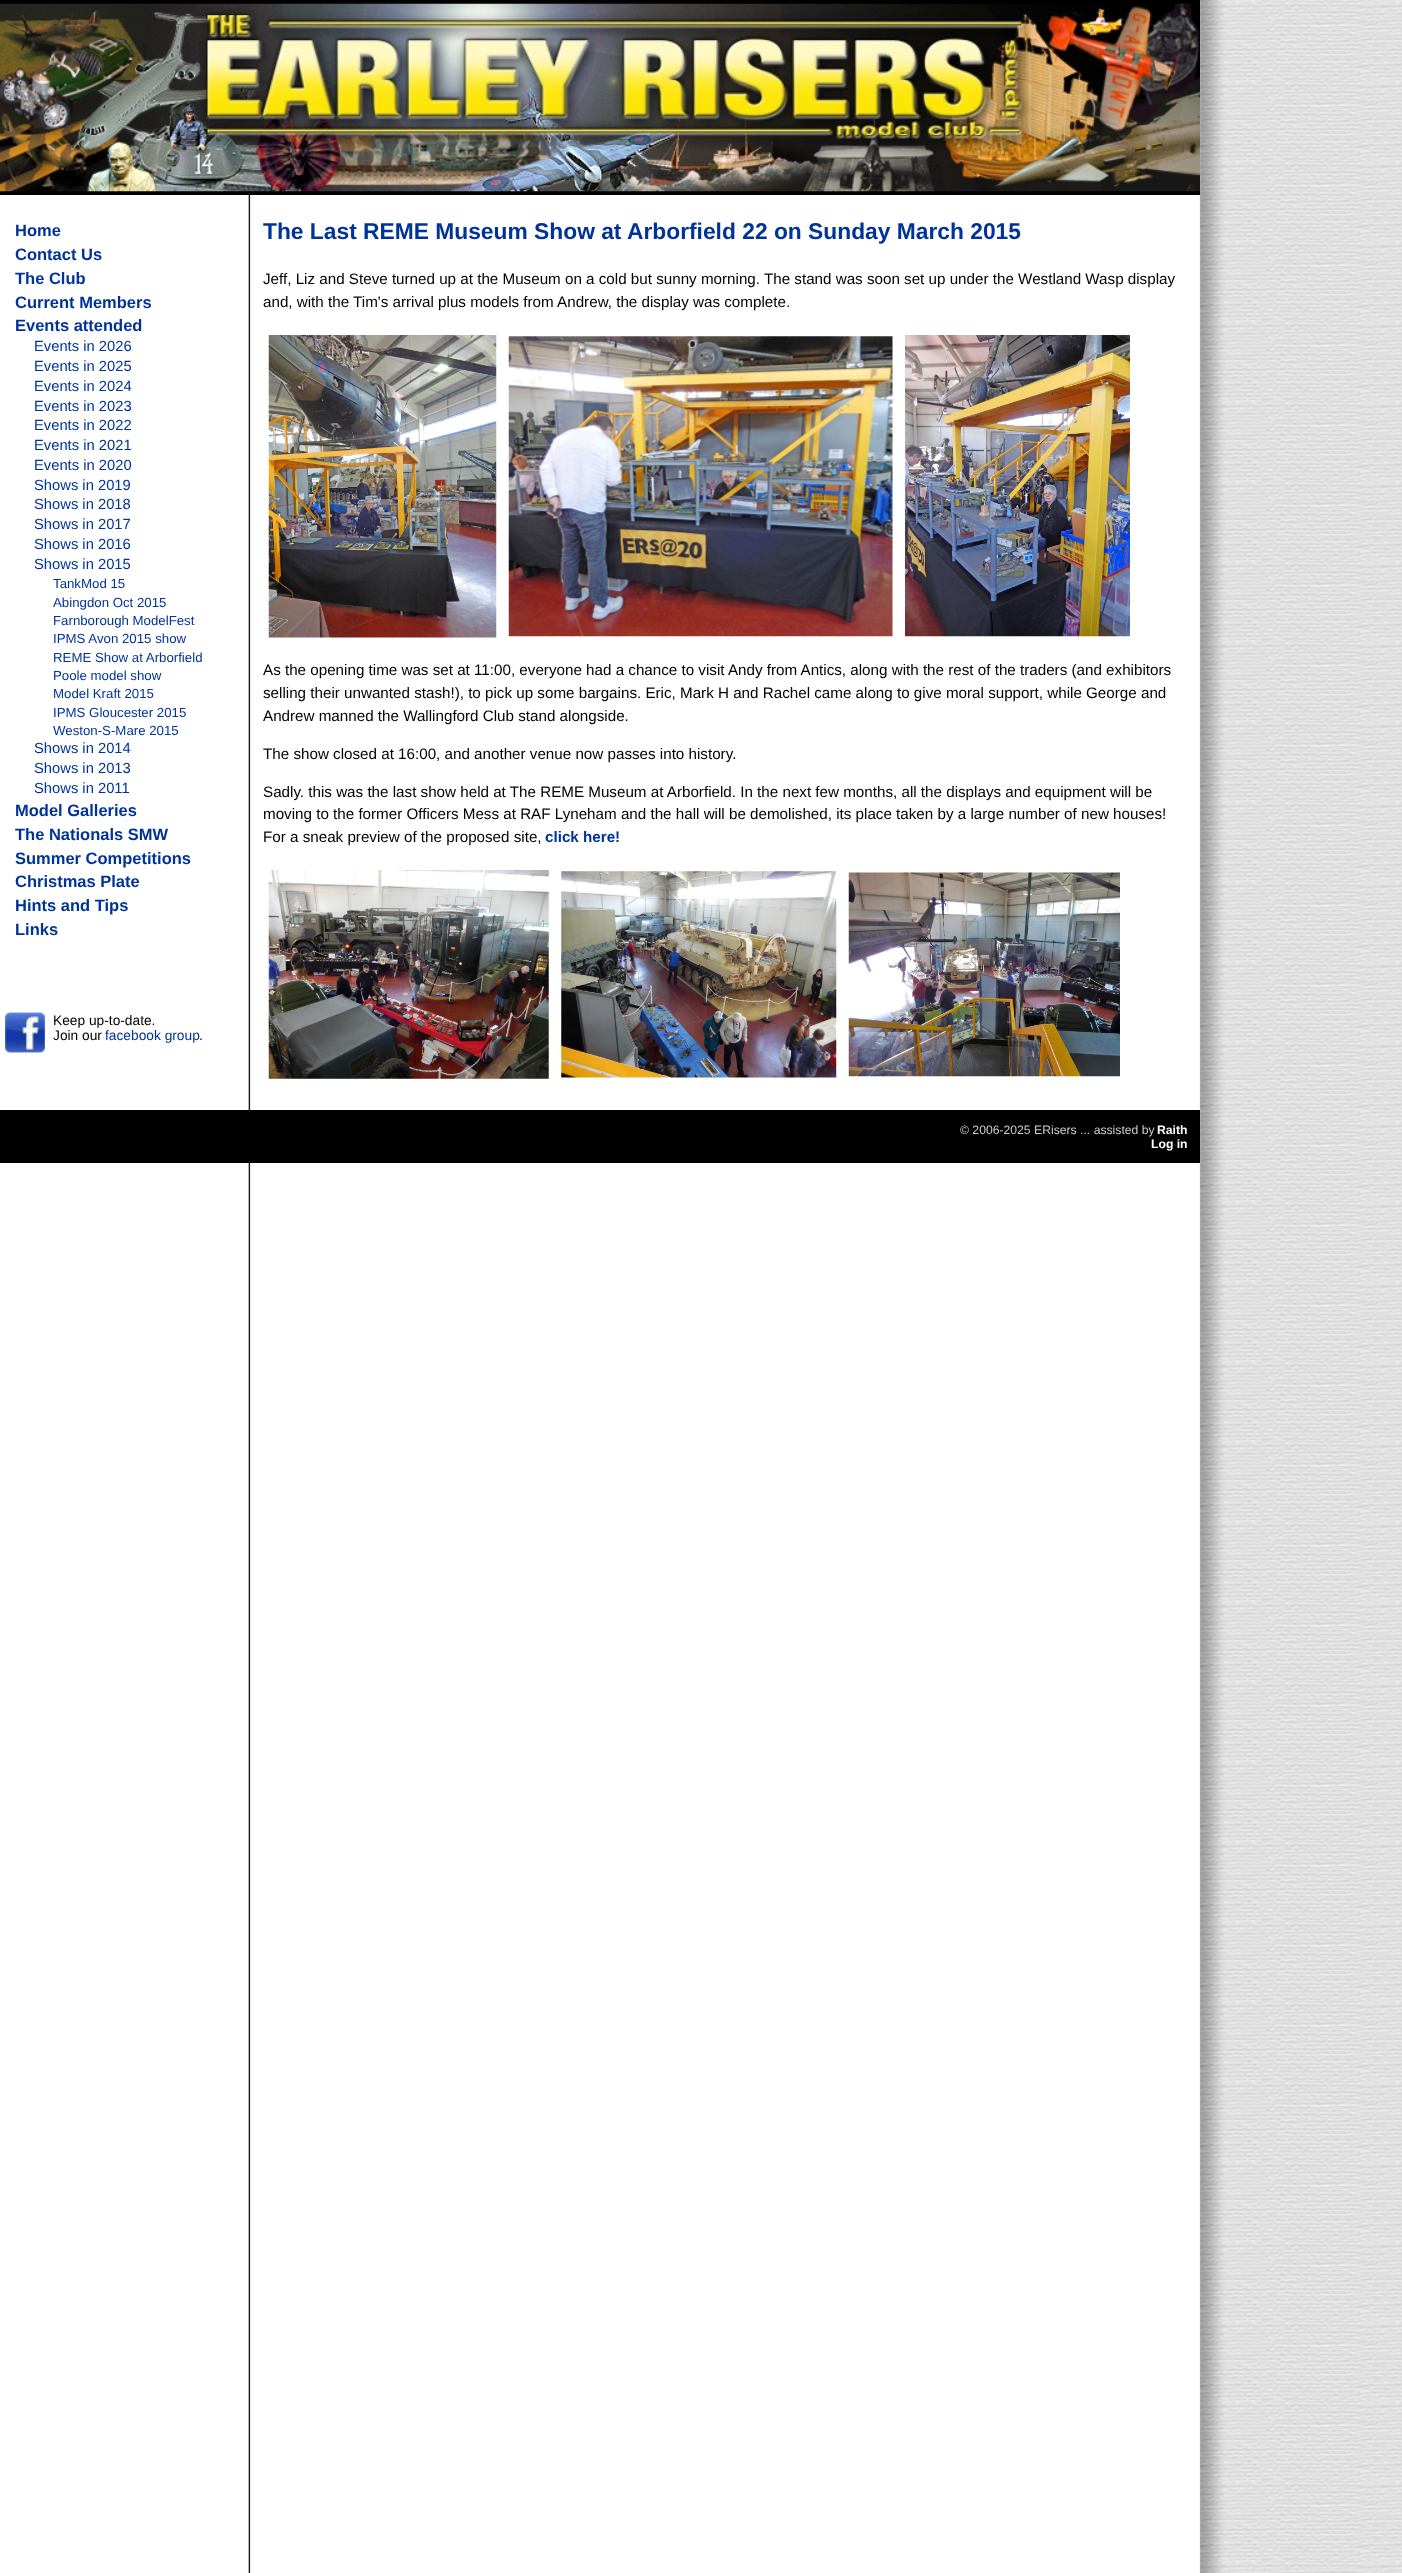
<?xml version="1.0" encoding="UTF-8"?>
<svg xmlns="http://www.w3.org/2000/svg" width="1402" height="2573">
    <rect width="100%" height="100%" fill="#FFFFFF"/>
    <image x="248" y="0" width="1154" height="2573" href="img_01.png"/>
    <rect x="0" y="0" width="1200" height="4" fill="#000000"/>
    <rect x="0" y="191" width="1200" height="4" fill="#000000"/>
    <image x="0" y="3" width="1200" height="189" href="img_02.png"/>
    <text font-family="Liberation Sans" font-size="16.5" font-weight="700" fill="#003399">
        <tspan x="15" y="236">Home</tspan>
        <tspan x="15" y="260">Contact Us</tspan>
        <tspan x="15" y="284">The Club</tspan>
        <tspan x="15" y="308">Current Members</tspan>
        <tspan x="15" y="331">Events attended</tspan>
    </text>
    <text font-family="Liberation Sans" font-size="14.75" fill="#003399">
        <tspan x="34" y="351">Events in 2026</tspan>
        <tspan x="34" y="371">Events in 2025</tspan>
        <tspan x="34" y="391">Events in 2024</tspan>
        <tspan x="34" y="411">Events in 2023</tspan>
        <tspan x="34" y="430">Events in 2022</tspan>
        <tspan x="34" y="450">Events in 2021</tspan>
        <tspan x="34" y="470">Events in 2020</tspan>
        <tspan x="34" y="490">Shows in 2019</tspan>
        <tspan x="34" y="509">Shows in 2018</tspan>
        <tspan x="34" y="529">Shows in 2017</tspan>
        <tspan x="34" y="549">Shows in 2016</tspan>
        <tspan x="34" y="569">Shows in 2015</tspan>
    </text>
    <text font-family="Liberation Sans" font-size="13.25" fill="#003399">
        <tspan x="53" y="588">TankMod 15</tspan>
        <tspan x="53" y="607">Abingdon Oct 2015</tspan>
        <tspan x="53" y="625">Farnborough ModelFest</tspan>
        <tspan x="53" y="643">IPMS Avon 2015 show</tspan>
        <tspan x="53" y="662">REME Show at Arborfield</tspan>
        <tspan x="53" y="680">Poole model show</tspan>
        <tspan x="53" y="698">Model Kraft 2015</tspan>
        <tspan x="53" y="717">IPMS Gloucester 2015</tspan>
        <tspan x="53" y="735">Weston-S-Mare 2015</tspan>
    </text>
    <text font-family="Liberation Sans" font-size="14.75" fill="#003399">
        <tspan x="34" y="753">Shows in 2014</tspan>
        <tspan x="34" y="773">Shows in 2013</tspan>
        <tspan x="34" y="793">Shows in 2011</tspan>
    </text>
    <text font-family="Liberation Sans" font-size="16.5" font-weight="700" fill="#003399">
        <tspan x="15" y="816">Model Galleries</tspan>
        <tspan x="15" y="840">The Nationals SMW</tspan>
        <tspan x="15" y="864">Summer Competitions</tspan>
        <tspan x="15" y="887">Christmas Plate</tspan>
        <tspan x="15" y="911">Hints and Tips</tspan>
        <tspan x="15" y="935">Links</tspan>
    </text>
    <image x="5" y="1012" width="40" height="41" href="img_03.png"/>
    <text font-family="Liberation Sans" font-size="13.75" fill="#000000">
        <tspan x="53" y="1025">Keep up-to-date.</tspan>
        <tspan x="53" y="1040">Join our</tspan>
    </text>
    <text x="105" y="1040" font-family="Liberation Sans" font-size="13.75" fill="#003399">facebook group</text>
    <text x="199" y="1040" font-family="Liberation Sans" font-size="13.75" fill="#000000">.</text>
    <text x="263" y="239" font-family="Liberation Sans" font-size="22.8" font-weight="700" fill="#003399">The Last REME Museum Show at Arborfield 22 on Sunday March 2015</text>
    <text font-family="Liberation Sans" font-size="15.2" fill="#000000">
        <tspan x="263" y="284">Jeff, Liz and Steve turned up at the Museum on a cold but sunny morning. The stand was soon set up under the Westland Wasp display</tspan>
        <tspan x="263" y="307">and, with the Tim's arrival plus models from Andrew, the display was complete.</tspan>
    </text>
    <image x="268" y="335" width="229" height="303" href="img_04.png"/>
    <image x="508" y="336" width="385" height="301" href="img_05.png"/>
    <image x="905" y="335" width="225" height="302" href="img_06.png"/>
    <text font-family="Liberation Sans" font-size="15.2" fill="#000000">
        <tspan x="263" y="675">As the opening time was set at 11:00, everyone had a chance to visit Andy from Antics, along with the rest of the traders (and exhibitors</tspan>
        <tspan x="263" y="698">selling their unwanted stash!), to pick up some bargains. Eric, Mark H and Rachel came along to give moral support, while George and</tspan>
        <tspan x="263" y="721">Andrew manned the Wallingford Club stand alongside.</tspan>
    </text>
    <text x="263" y="759" font-family="Liberation Sans" font-size="15.2" fill="#000000">The show closed at 16:00, and another venue now passes into history.</text>
    <text font-family="Liberation Sans" font-size="15.2" fill="#000000">
        <tspan x="263" y="797">Sadly. this was the last show held at The REME Museum at Arborfield. In the next few months, all the displays and equipment will be</tspan>
        <tspan x="263" y="819">moving to the former Officers Mess at RAF Lyneham and the hall will be demolished, its place taken by a large number of new houses!</tspan>
        <tspan x="263" y="842">For a sneak preview of the proposed site,</tspan>
    </text>
    <text x="545" y="842" font-family="Liberation Sans" font-size="15.2" font-weight="700" fill="#003399">click here!</text>
    <image x="268" y="870" width="281" height="209" href="img_07.png"/>
    <image x="561" y="871" width="276" height="207" href="img_08.png"/>
    <image x="848" y="872" width="272" height="205" href="img_09.png"/>
    <rect x="0" y="1110" width="1200" height="53" fill="#000000"/>
    <text x="960" y="1134" font-family="Liberation Sans" font-size="12.2" fill="#CCCCCC">© 2006-2025 ERisers ... assisted by</text>
    <text x="1157" y="1134" font-family="Liberation Sans" font-size="12.2" font-weight="700" fill="#FFFFFF">Raith</text>
    <text x="1151" y="1148" font-family="Liberation Sans" font-size="12.2" font-weight="700" fill="#FFFFFF">Log in</text>
</svg>
